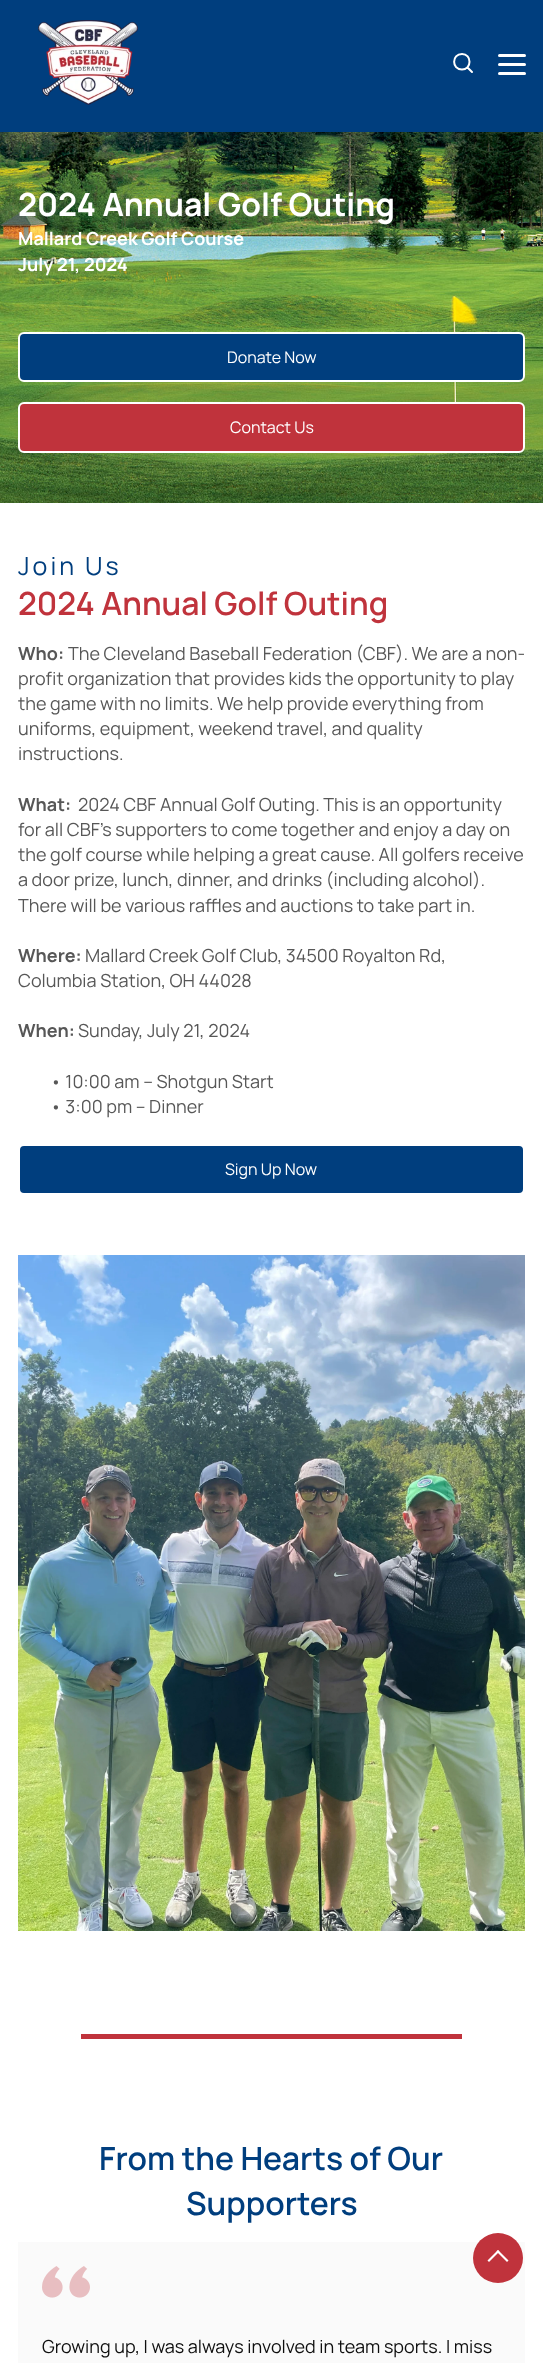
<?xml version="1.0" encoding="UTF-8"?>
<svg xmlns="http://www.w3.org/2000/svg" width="543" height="2363">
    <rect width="100%" height="100%" fill="#FFFFFF"/>
    <rect x="0" y="0" width="543" height="132" fill="#003E7E"/>
    <image x="38" y="20" width="100" height="85" href="img_01.png"/>
    <path d="M 462 69.5 C 472 69.5 472 54 462 54 C 451.5 54 451.5 69.5 462 69.5 Z M 467.5 67.5 L 472 72" fill="none" stroke="#FFFFFF" stroke-width="2" stroke-linecap="round" stroke-linejoin="round"/>
    <rect x="498" y="54" width="28" height="3" rx="1.5" fill="#FFFFFF"/>
    <rect x="498" y="63" width="28" height="3" rx="1.5" fill="#FFFFFF"/>
    <rect x="498" y="72" width="28" height="3" rx="1.5" fill="#FFFFFF"/>
    <image x="0" y="132" width="543" height="371" href="img_02.png"/>
    <text x="18" y="216" font-family="Manrope" font-size="32" font-weight="700" fill="#FFFFFF">2024 Annual Golf Outing</text>
    <text font-family="Manrope" font-size="18" font-weight="700" fill="#FFFFFF">
        <tspan x="18" y="245">Mallard Creek Golf Course</tspan>
        <tspan x="18" y="271">July 21, 2024</tspan>
    </text>
    <rect x="19" y="333" width="505" height="48" rx="5" fill="#003E7E" stroke="#FFFFFF" stroke-width="2"/>
    <text x="227" y="363" font-family="Manrope" font-size="16" fill="#FFFFFF">Donate Now</text>
    <rect x="19" y="403" width="505" height="49" rx="5" fill="#C0333C" stroke="#FFFFFF" stroke-width="2"/>
    <text x="230" y="433" font-family="Manrope" font-size="16" fill="#FFFFFF">Contact Us</text>
    <text x="18" y="575" font-family="Manrope" font-size="25" letter-spacing="3" fill="#003E7E">Join Us</text>
    <text x="18" y="615" font-family="Manrope" font-size="32" font-weight="600" fill="#C0333C">2024 Annual Golf Outing</text>
    <text x="18" y="660" font-family="Manrope" font-size="18" font-weight="700" fill="#575757">Who:</text>
    <text x="68" y="660" font-family="Manrope" font-size="18" fill="#575757">The Cleveland Baseball Federation (CBF). We are a non-</text>
    <text font-family="Manrope" font-size="18" fill="#575757">
        <tspan x="18" y="685">profit organization that provides kids the opportunity to play</tspan>
        <tspan x="18" y="710">the game with no limits. We help provide everything from</tspan>
        <tspan x="18" y="735">uniforms, equipment, weekend travel, and quality</tspan>
        <tspan x="18" y="760">instructions.</tspan>
    </text>
    <text x="18" y="811" font-family="Manrope" font-size="18" font-weight="700" fill="#575757">What:</text>
    <text x="78" y="811" font-family="Manrope" font-size="18" fill="#575757">2024 CBF Annual Golf Outing. This is an opportunity</text>
    <text font-family="Manrope" font-size="18" fill="#575757">
        <tspan x="18" y="836">for all CBF’s supporters to come together and enjoy a day on</tspan>
        <tspan x="18" y="861">the golf course while helping a great cause. All golfers receive</tspan>
        <tspan x="18" y="886">a door prize, lunch, dinner, and drinks (including alcohol).</tspan>
        <tspan x="18" y="912">There will be various raffles and auctions to take part in.</tspan>
    </text>
    <text x="18" y="962" font-family="Manrope" font-size="18" font-weight="700" fill="#575757">Where:</text>
    <text x="85" y="962" font-family="Manrope" font-size="18" fill="#575757">Mallard Creek Golf Club, 34500 Royalton Rd,</text>
    <text x="18" y="987" font-family="Manrope" font-size="18" fill="#575757">Columbia Station, OH 44028</text>
    <text x="18" y="1037" font-family="Manrope" font-size="18" font-weight="700" fill="#575757">When:</text>
    <text x="78" y="1037" font-family="Manrope" font-size="18" fill="#575757">Sunday, July 21, 2024</text>
    <text font-family="Manrope" font-size="18" fill="#575757">
        <tspan x="50" y="1088">• 10:00 am – Shotgun Start</tspan>
        <tspan x="50" y="1113">• 3:00 pm – Dinner</tspan>
    </text>
    <rect x="19" y="1145" width="505" height="49" rx="5" fill="#003E7E" stroke="#FFFFFF" stroke-width="2"/>
    <text x="225" y="1175" font-family="Manrope" font-size="16" fill="#FFFFFF">Sign Up Now</text>
    <image x="18" y="1255" width="507" height="676" href="img_03.png"/>
    <rect x="81" y="2034" width="381" height="5" fill="#C0333C"/>
    <text x="99" y="2170" font-family="Manrope" font-size="32" font-weight="600" fill="#003E7E">From the Hearts of Our</text>
    <text x="186" y="2215" font-family="Manrope" font-size="32" font-weight="600" fill="#003E7E">Supporters</text>
    <rect x="18" y="2242" width="507" height="121" fill="#FAFAFA"/>
    <image x="42" y="2266" width="48" height="32" href="img_04.png"/>
    <text x="42" y="2353" font-family="Manrope" font-size="18" fill="#0E0E0E">Growing up, I was always involved in team sports. I miss</text>
    <circle cx="498" cy="2258" r="25" fill="#C0333C"/>
    <path d="M 498 2250 L 508.5 2260.5 L 507 2262 L 496.5 2251.5 Z" fill="#FFFFFF"/>
    <path d="M 498 2250 L 499.5 2251.5 L 489 2262 L 487.5 2260.5 Z" fill="#FFFFFF"/>
</svg>
